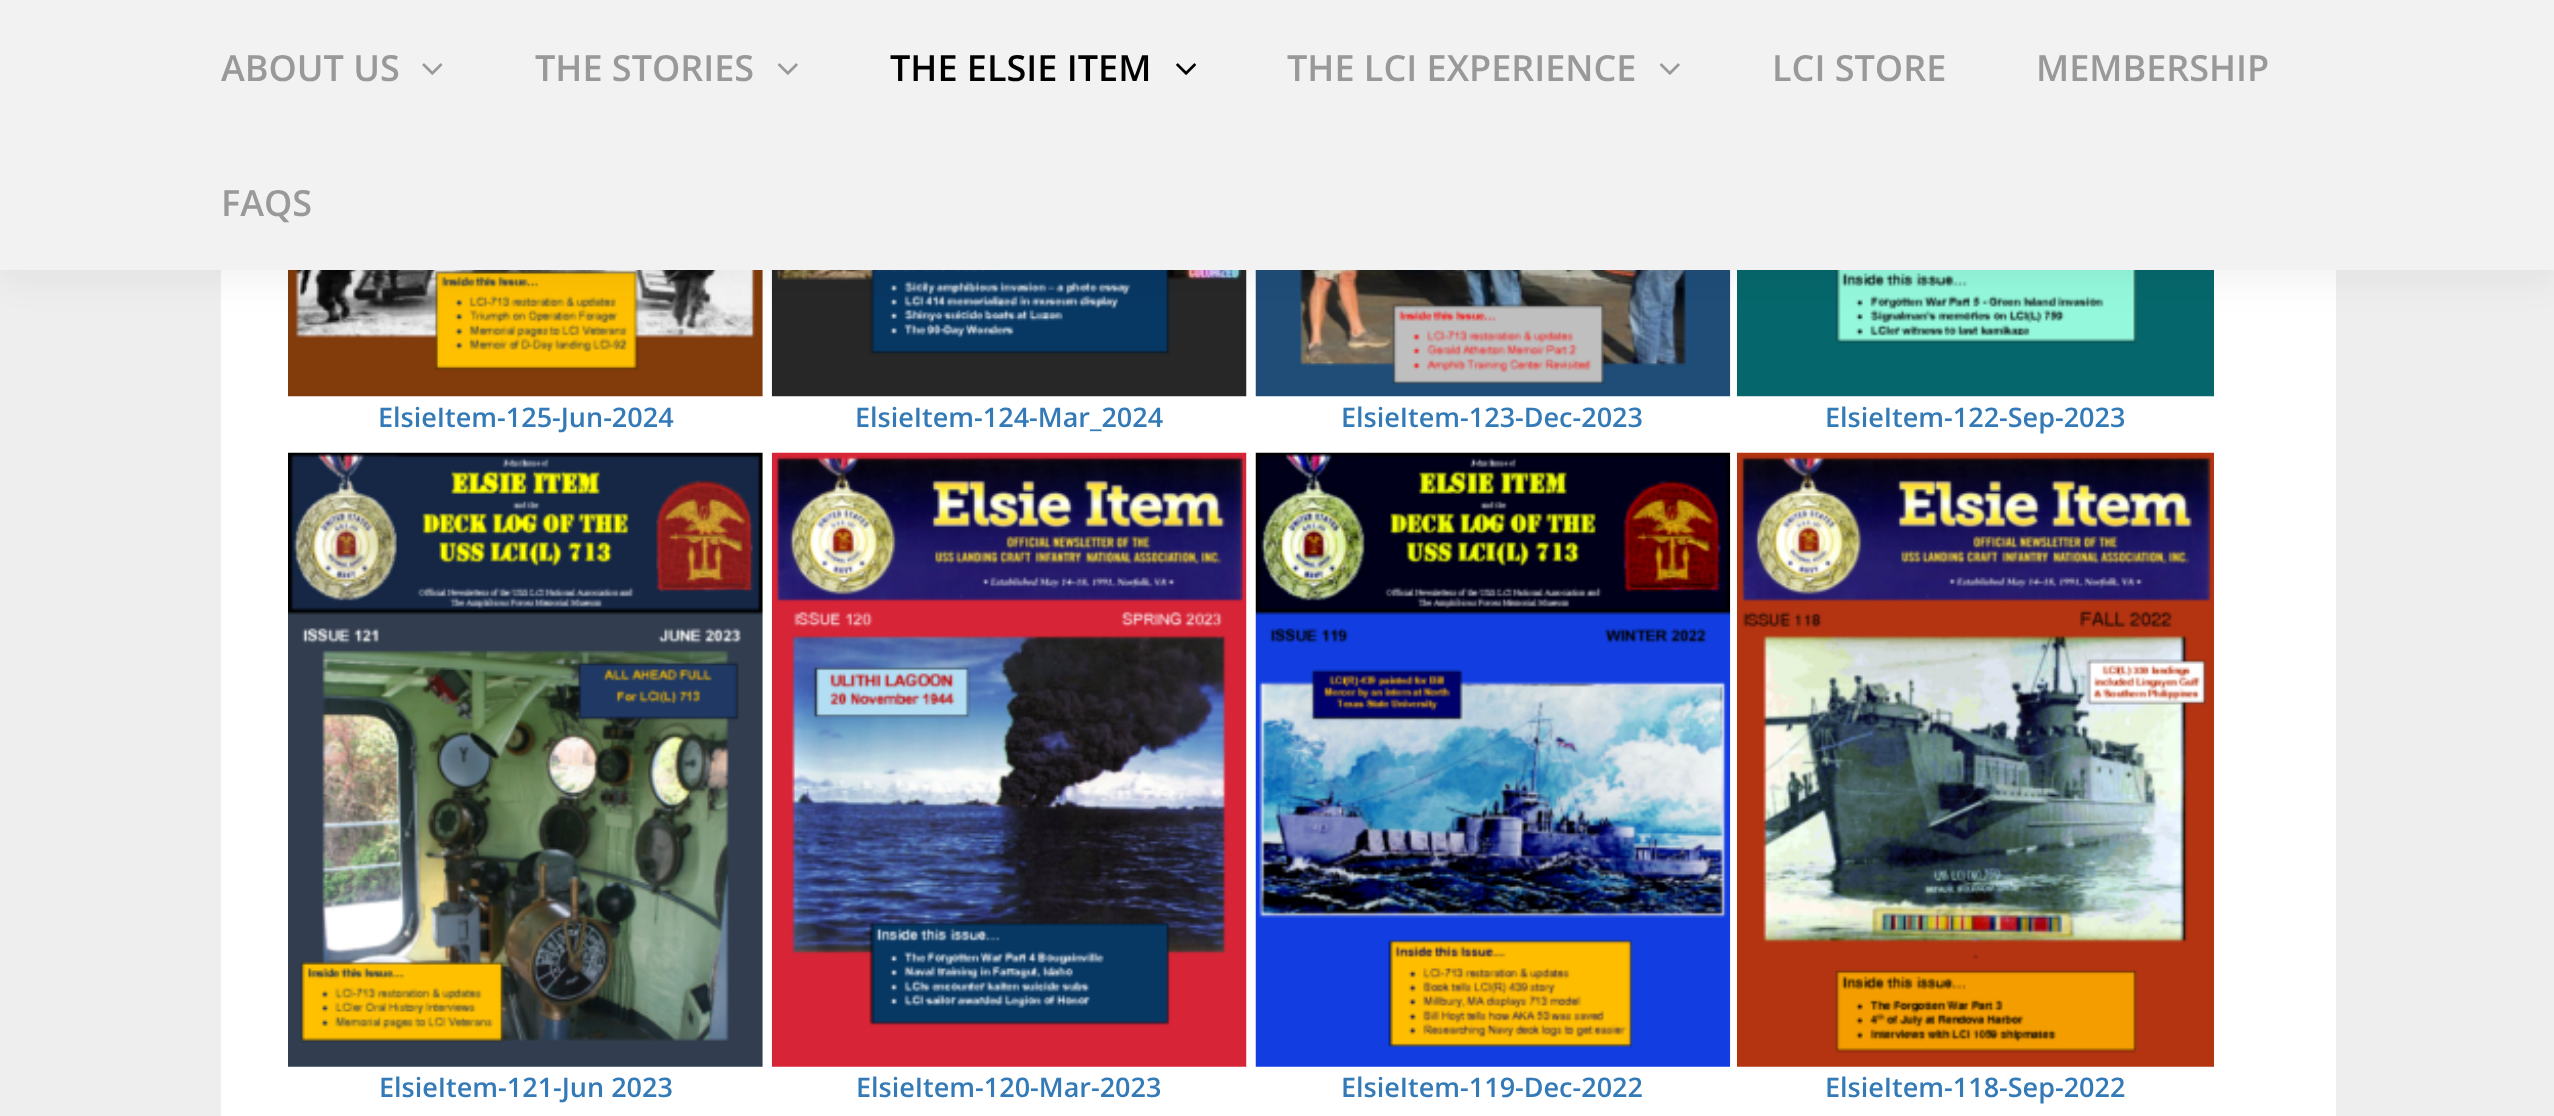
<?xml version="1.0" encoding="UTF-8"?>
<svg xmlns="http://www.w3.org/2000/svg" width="2554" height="1116">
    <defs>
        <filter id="blur1" x="-50%" y="-200%" width="200%" height="500%"><feGaussianBlur stdDeviation="17"/></filter>
    </defs>
    <rect width="100%" height="100%" fill="#EEEEEE"/>
    <rect x="221" y="270" width="2115" height="846" fill="#FFFFFF"/>
    <image x="288" y="270" width="475" height="127" href="img_04.png"/>
    <image x="771" y="270" width="476" height="127" href="img_05.png"/>
    <image x="1255" y="270" width="476" height="127" href="img_06.png"/>
    <image x="1737" y="270" width="477" height="127" href="img_07.png"/>
    <rect x="0" y="11" width="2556" height="270" fill="#000000" fill-opacity="0.05" filter="url(#blur1)"/>
    <rect x="0" y="0" width="2554" height="270" fill="#F2F2F2"/>
    <text x="221" y="81" font-family="Open Sans" font-size="36" font-weight="600" fill="#999999">ABOUT US</text>
    <image x="422" y="63" width="21" height="12" href="img_01.png"/>
    <text x="535" y="81" font-family="Open Sans" font-size="36" font-weight="600" fill="#999999">THE STORIES</text>
    <image x="777" y="63" width="21" height="12" href="img_02.png"/>
    <text x="890" y="81" font-family="Open Sans" font-size="36" font-weight="600" fill="#000000">THE ELSIE ITEM</text>
    <image x="1176" y="63" width="20" height="12" href="img_03.png"/>
    <text x="1287" y="81" font-family="Open Sans" font-size="36" font-weight="600" fill="#999999">THE LCI EXPERIENCE</text>
    <image x="1659" y="63" width="21" height="12" href="img_02.png"/>
    <text x="1772" y="81" font-family="Open Sans" font-size="36" font-weight="600" fill="#999999">LCI STORE</text>
    <text x="2036" y="81" font-family="Open Sans" font-size="36" font-weight="600" fill="#999999">MEMBERSHIP</text>
    <text x="221" y="216" font-family="Open Sans" font-size="36" font-weight="600" fill="#999999">FAQS</text>
    <text x="378" y="427" font-family="Open Sans" font-size="27" font-weight="600" fill="#337AB7">ElsieItem-125-Jun-2024</text>
    <text x="855" y="427" font-family="Open Sans" font-size="27" font-weight="600" fill="#337AB7">ElsieItem-124-Mar_2024</text>
    <text x="1341" y="427" font-family="Open Sans" font-size="27" font-weight="600" fill="#337AB7">ElsieItem-123-Dec-2023</text>
    <text x="1825" y="427" font-family="Open Sans" font-size="27" font-weight="600" fill="#337AB7">ElsieItem-122-Sep-2023</text>
    <image x="288" y="452" width="475" height="615" href="img_08.png"/>
    <text x="379" y="1097" font-family="Open Sans" font-size="27" font-weight="600" fill="#337AB7">ElsieItem-121-Jun 2023</text>
    <image x="771" y="452" width="476" height="615" href="img_09.png"/>
    <text x="856" y="1097" font-family="Open Sans" font-size="27" font-weight="600" fill="#337AB7">ElsieItem-120-Mar-2023</text>
    <image x="1255" y="452" width="476" height="615" href="img_10.png"/>
    <text x="1341" y="1097" font-family="Open Sans" font-size="27" font-weight="600" fill="#337AB7">ElsieItem-119-Dec-2022</text>
    <image x="1737" y="452" width="477" height="615" href="img_11.png"/>
    <text x="1825" y="1097" font-family="Open Sans" font-size="27" font-weight="600" fill="#337AB7">ElsieItem-118-Sep-2022</text>
</svg>
